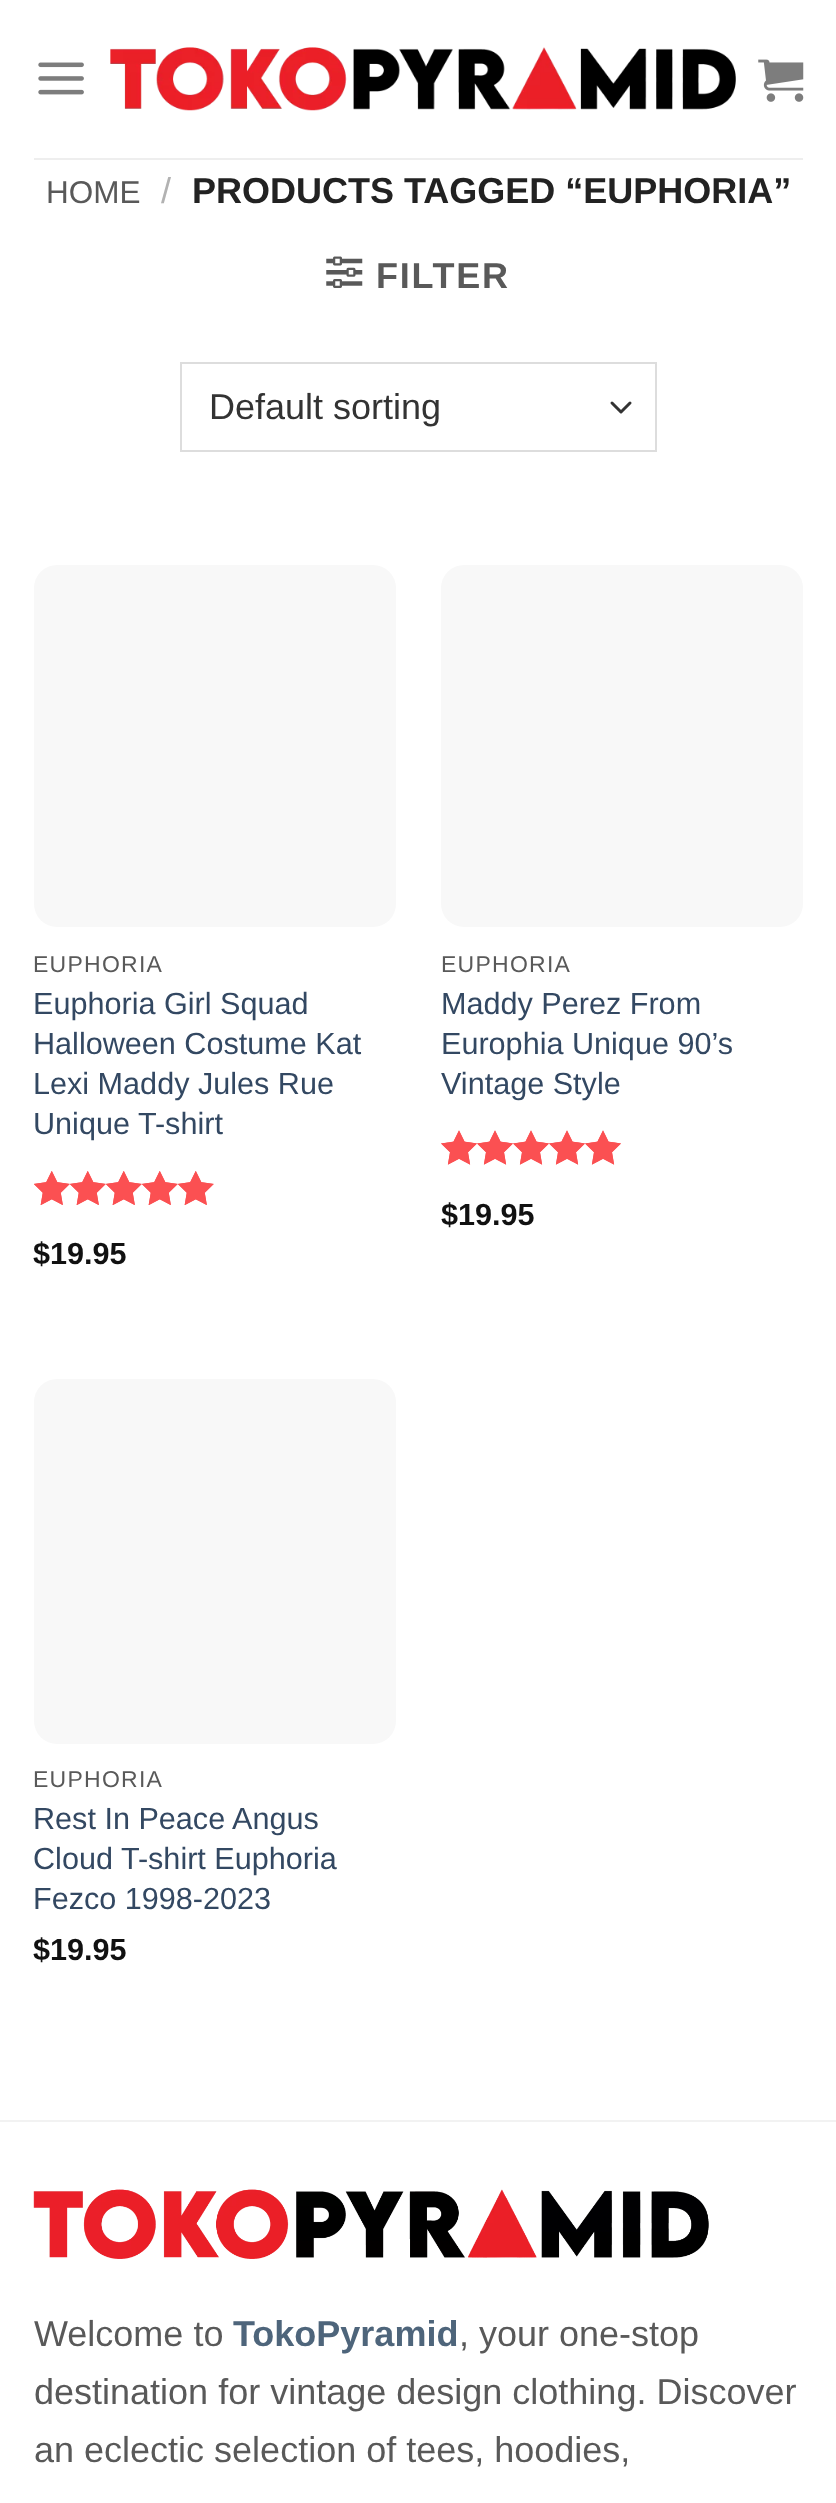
<?xml version="1.0" encoding="UTF-8"?>
<svg xmlns="http://www.w3.org/2000/svg" width="836" height="2503">
    <rect width="100%" height="100%" fill="#FFFFFF"/>
    <image x="38" y="62" width="46" height="33" href="img_01.png"/>
    <image x="110" y="47" width="626" height="64" href="img_02.png"/>
    <image x="758" y="59" width="46" height="43" href="img_03.png"/>
    <rect x="34" y="158" width="769" height="2" fill="#EEEEEE"/>
    <text x="46" y="203" font-family="Liberation Sans" font-size="31.5" fill="#595959">HOME</text>
    <text x="161" y="203" font-family="Liberation Sans" font-size="36" fill="#B2B2B2">/</text>
    <text x="192" y="203" font-family="Liberation Sans" font-size="36" font-weight="700" fill="#222222">PRODUCTS TAGGED “EUPHORIA”</text>
    <image x="326" y="256" width="37" height="32" href="img_04.png"/>
    <text x="376" y="288" font-family="Liberation Sans" font-size="36" font-weight="700" letter-spacing="1.75" fill="#595959">FILTER</text>
    <path d="M 612 403 L 621 412 L 630 403" fill="none" stroke="#333333" stroke-width="3" stroke-linecap="round" stroke-linejoin="round"/>
    <rect x="181" y="363" width="475" height="88" fill="none" stroke="#DDDDDD" stroke-width="2"/>
    <text x="209" y="419" font-family="Liberation Sans" font-size="36" fill="#333333">Default sorting</text>
    <rect x="34" y="565" width="362" height="362" rx="23" fill="#F8F8F8"/>
    <text x="33" y="972" font-family="Liberation Sans" font-size="23" letter-spacing="1.25" fill="#595959">EUPHORIA</text>
    <text font-family="Liberation Sans" font-size="30.6" fill="#334862">
        <tspan x="33" y="1014">Euphoria Girl Squad</tspan>
        <tspan x="33" y="1054">Halloween Costume Kat</tspan>
        <tspan x="33" y="1094">Lexi Maddy Jules Rue</tspan>
        <tspan x="33" y="1134">Unique T-shirt</tspan>
    </text>
    <image x="34" y="1171" width="180" height="34" href="img_05.png"/>
    <image x="34" y="1171" width="180" height="34" href="img_06.png"/>
    <text x="33" y="1264" font-family="Liberation Sans" font-size="30.6" font-weight="700" fill="#111111">$19.95</text>
    <rect x="441" y="565" width="362" height="362" rx="23" fill="#F8F8F8"/>
    <text x="441" y="972" font-family="Liberation Sans" font-size="23" letter-spacing="1.25" fill="#595959">EUPHORIA</text>
    <text font-family="Liberation Sans" font-size="30.6" fill="#334862">
        <tspan x="441" y="1014">Maddy Perez From</tspan>
        <tspan x="441" y="1054">Europhia Unique 90’s</tspan>
        <tspan x="441" y="1094">Vintage Style</tspan>
    </text>
    <image x="441" y="1130" width="180" height="35" href="img_07.png"/>
    <image x="441" y="1130" width="180" height="35" href="img_08.png"/>
    <text x="441" y="1225" font-family="Liberation Sans" font-size="30.6" font-weight="700" fill="#111111">$19.95</text>
    <rect x="34" y="1379" width="362" height="365" rx="23" fill="#F8F8F8"/>
    <text x="33" y="1787" font-family="Liberation Sans" font-size="23" letter-spacing="1.25" fill="#595959">EUPHORIA</text>
    <text font-family="Liberation Sans" font-size="30.6" fill="#334862">
        <tspan x="33" y="1829">Rest In Peace Angus</tspan>
        <tspan x="33" y="1869">Cloud T-shirt Euphoria</tspan>
        <tspan x="33" y="1909">Fezco 1998-2023</tspan>
    </text>
    <text x="33" y="1960" font-family="Liberation Sans" font-size="30.6" font-weight="700" fill="#111111">$19.95</text>
    <rect x="0" y="2120" width="836" height="2" fill="#F2F2F2"/>
    <image x="33" y="2189" width="676" height="70" href="img_09.png"/>
    <text x="34" y="2346" font-family="Liberation Sans" font-size="36" fill="#595959">Welcome to</text>
    <text x="233" y="2346" font-family="Liberation Sans" font-size="36" font-weight="700" fill="#4E657B">TokoPyramid</text>
    <text x="459" y="2346" font-family="Liberation Sans" font-size="36" fill="#595959">, your one-stop</text>
    <text font-family="Liberation Sans" font-size="36" fill="#595959">
        <tspan x="34" y="2404">destination for vintage design clothing. Discover</tspan>
        <tspan x="34" y="2462">an eclectic selection of tees, hoodies,</tspan>
    </text>
</svg>
